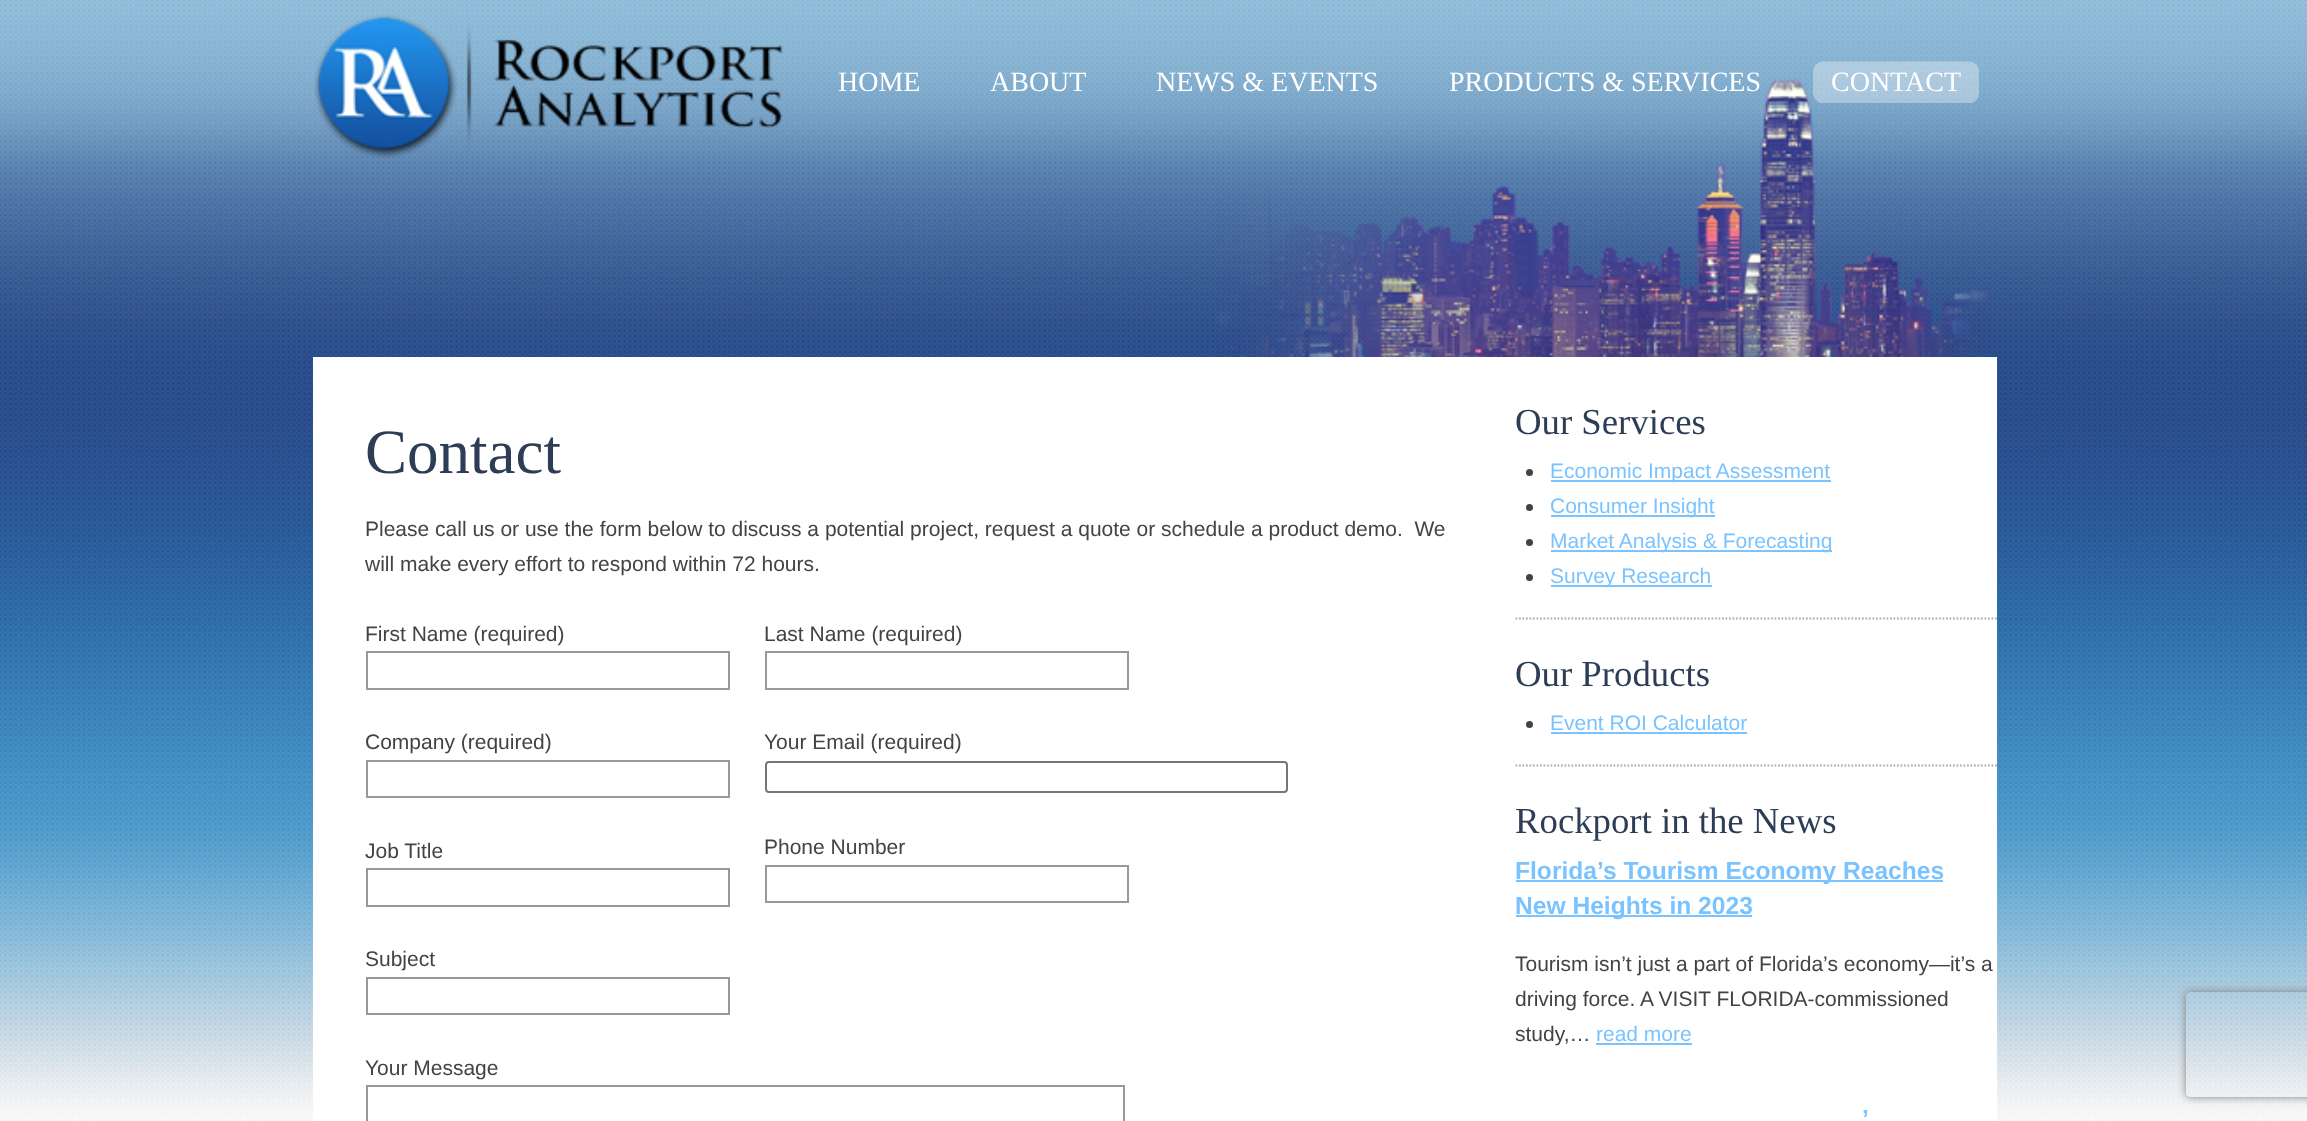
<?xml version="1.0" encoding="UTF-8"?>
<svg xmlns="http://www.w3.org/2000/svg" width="2307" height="1121">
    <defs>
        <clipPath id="clip1"><path d="M 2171 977 H 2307 V 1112 H 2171 Z M 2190 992 H 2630 C 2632 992 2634 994 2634 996 V 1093 C 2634 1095 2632 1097 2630 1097 H 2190 C 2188 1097 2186 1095 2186 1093 V 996 C 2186 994 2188 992 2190 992 Z" clip-rule="evenodd"/></clipPath>
        <filter id="blur1" x="-50%" y="-200%" width="200%" height="500%"><feGaussianBlur stdDeviation="4.5"/></filter>
    </defs>
    <rect width="100%" height="100%" fill="#FFFFFF"/>
    <image x="0" y="0" width="2307" height="1121" href="img_01.png"/>
    <image x="314" y="15" width="469" height="143" href="img_02.png"/>
    <text x="838" y="91" font-family="Liberation Serif" font-size="28" fill="#FFFFFF">HOME</text>
    <text x="990" y="91" font-family="Liberation Serif" font-size="28" fill="#FFFFFF">ABOUT</text>
    <image x="1215" y="78" width="775" height="279" href="img_04.png"/>
    <text x="1156" y="91" font-family="Liberation Serif" font-size="28" fill="#FFFFFF">NEWS &amp; EVENTS</text>
    <text x="1449" y="91" font-family="Liberation Serif" font-size="28" fill="#FFFFFF">PRODUCTS &amp; SERVICES</text>
    <image x="1813" y="61" width="166" height="42" href="img_03.png"/>
    <text x="1831" y="91" font-family="Liberation Serif" font-size="28" fill="#FFFFFF">CONTACT</text>
    <rect x="313" y="357" width="1684" height="764" fill="#FFFFFF"/>
    <text x="365" y="473" font-family="Liberation Serif" font-size="63" fill="#2D3D56">Contact</text>
    <text font-family="Liberation Sans" font-size="21" fill="#444343" xml:space="preserve"><tspan x="365" y="536">Please call us or use the form below to discuss a potential project, request a quote or schedule a product demo.  We</tspan><tspan x="365" y="571">will make every effort to respond within 72 hours.</tspan></text>
    <text x="365" y="641" font-family="Liberation Sans" font-size="21" fill="#444343">First Name (required)</text>
    <rect x="367" y="652" width="362" height="37" fill="none" stroke="#999999" stroke-width="2"/>
    <text x="365" y="749" font-family="Liberation Sans" font-size="21" fill="#444343">Company (required)</text>
    <rect x="367" y="761" width="362" height="36" fill="none" stroke="#999999" stroke-width="2"/>
    <text x="365" y="858" font-family="Liberation Sans" font-size="21" fill="#444343">Job Title</text>
    <rect x="367" y="869" width="362" height="37" fill="none" stroke="#999999" stroke-width="2"/>
    <text x="365" y="966" font-family="Liberation Sans" font-size="21" fill="#444343">Subject</text>
    <rect x="367" y="978" width="362" height="36" fill="none" stroke="#999999" stroke-width="2"/>
    <text x="764" y="641" font-family="Liberation Sans" font-size="21" fill="#444343">Last Name (required)</text>
    <rect x="766" y="652" width="362" height="37" fill="none" stroke="#999999" stroke-width="2"/>
    <text x="764" y="749" font-family="Liberation Sans" font-size="21" fill="#444343">Your Email (required)</text>
    <rect x="766" y="762" width="521" height="30" rx="3" fill="none" stroke="#767676" stroke-width="2"/>
    <text x="764" y="854" font-family="Liberation Sans" font-size="21" fill="#444343">Phone Number</text>
    <rect x="766" y="866" width="362" height="36" fill="none" stroke="#999999" stroke-width="2"/>
    <text x="365" y="1075" font-family="Liberation Sans" font-size="21" fill="#444343">Your Message</text>
    <rect x="367" y="1086" width="757" height="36" fill="none" stroke="#999999" stroke-width="2"/>
    <path d="M 1515.5 618.5 H 1997" fill="none" stroke="#AAAAAA" stroke-width="1.8" stroke-dasharray="1.75 1.75"/>
    <text x="1515" y="434" font-family="Liberation Serif" font-size="36.75" fill="#2D3D56">Our Services</text>
    <circle cx="1529.5" cy="472.5" r="3.5" fill="#444343"/>
    <rect x="1551" y="480" width="280" height="2" fill="#7BC3FF"/>
    <text x="1550" y="478" font-family="Liberation Sans" font-size="21" fill="#7BC3FF">Economic Impact Assessment</text>
    <circle cx="1529.5" cy="507.5" r="3.5" fill="#444343"/>
    <rect x="1551" y="515" width="164" height="2" fill="#7BC3FF"/>
    <text x="1550" y="513" font-family="Liberation Sans" font-size="21" fill="#7BC3FF">Consumer Insight</text>
    <circle cx="1529.5" cy="542.5" r="3.5" fill="#444343"/>
    <rect x="1551" y="550" width="281" height="2" fill="#7BC3FF"/>
    <text x="1550" y="548" font-family="Liberation Sans" font-size="21" fill="#7BC3FF">Market Analysis &amp; Forecasting</text>
    <circle cx="1529.5" cy="577.5" r="3.5" fill="#444343"/>
    <rect x="1551" y="585" width="161" height="2" fill="#7BC3FF"/>
    <text x="1550" y="583" font-family="Liberation Sans" font-size="21" fill="#7BC3FF">Survey Research</text>
    <path d="M 1515.5 765.5 H 1997" fill="none" stroke="#AAAAAA" stroke-width="1.8" stroke-dasharray="1.75 1.75"/>
    <text x="1515" y="686" font-family="Liberation Serif" font-size="36.75" fill="#2D3D56">Our Products</text>
    <circle cx="1529.5" cy="724.5" r="3.5" fill="#444343"/>
    <text x="1550" y="730" font-family="Liberation Sans" font-size="21" fill="#7BC3FF">Event ROI Calculator</text>
    <rect x="1551" y="732" width="196" height="2" fill="#7BC3FF"/>
    <text x="1515" y="833" font-family="Liberation Serif" font-size="36.75" fill="#2D3D56">Rockport in the News</text>
    <rect x="1516" y="880" width="427" height="2" fill="#7BC3FF"/>
    <text x="1515" y="879" font-family="Liberation Sans" font-size="24.6" font-weight="700" fill="#7BC3FF">Florida’s Tourism Economy Reaches</text>
    <rect x="1516" y="915" width="236" height="2" fill="#7BC3FF"/>
    <text x="1515" y="914" font-family="Liberation Sans" font-size="24.6" font-weight="700" fill="#7BC3FF">New Heights in 2023</text>
    <text font-family="Liberation Sans" font-size="21" fill="#444343">
        <tspan x="1515" y="971">Tourism isn’t just a part of Florida’s economy—it’s a</tspan>
        <tspan x="1515" y="1006">driving force. A VISIT FLORIDA-commissioned</tspan>
        <tspan x="1515" y="1041">study,…</tspan>
    </text>
    <text x="1596" y="1041" font-family="Liberation Sans" font-size="21" fill="#7BC3FF">read more</text>
    <rect x="1596" y="1043" width="96" height="2" fill="#7BC3FF"/>
    <text x="1862" y="1127" font-family="Liberation Sans" font-size="24.6" font-weight="700" fill="#7BC3FF">’</text>
    <g clip-path="url(#clip1)">
        <rect x="2186" y="992" width="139" height="105" rx="4" fill="#808080" filter="url(#blur1)"/>
    </g>
</svg>
